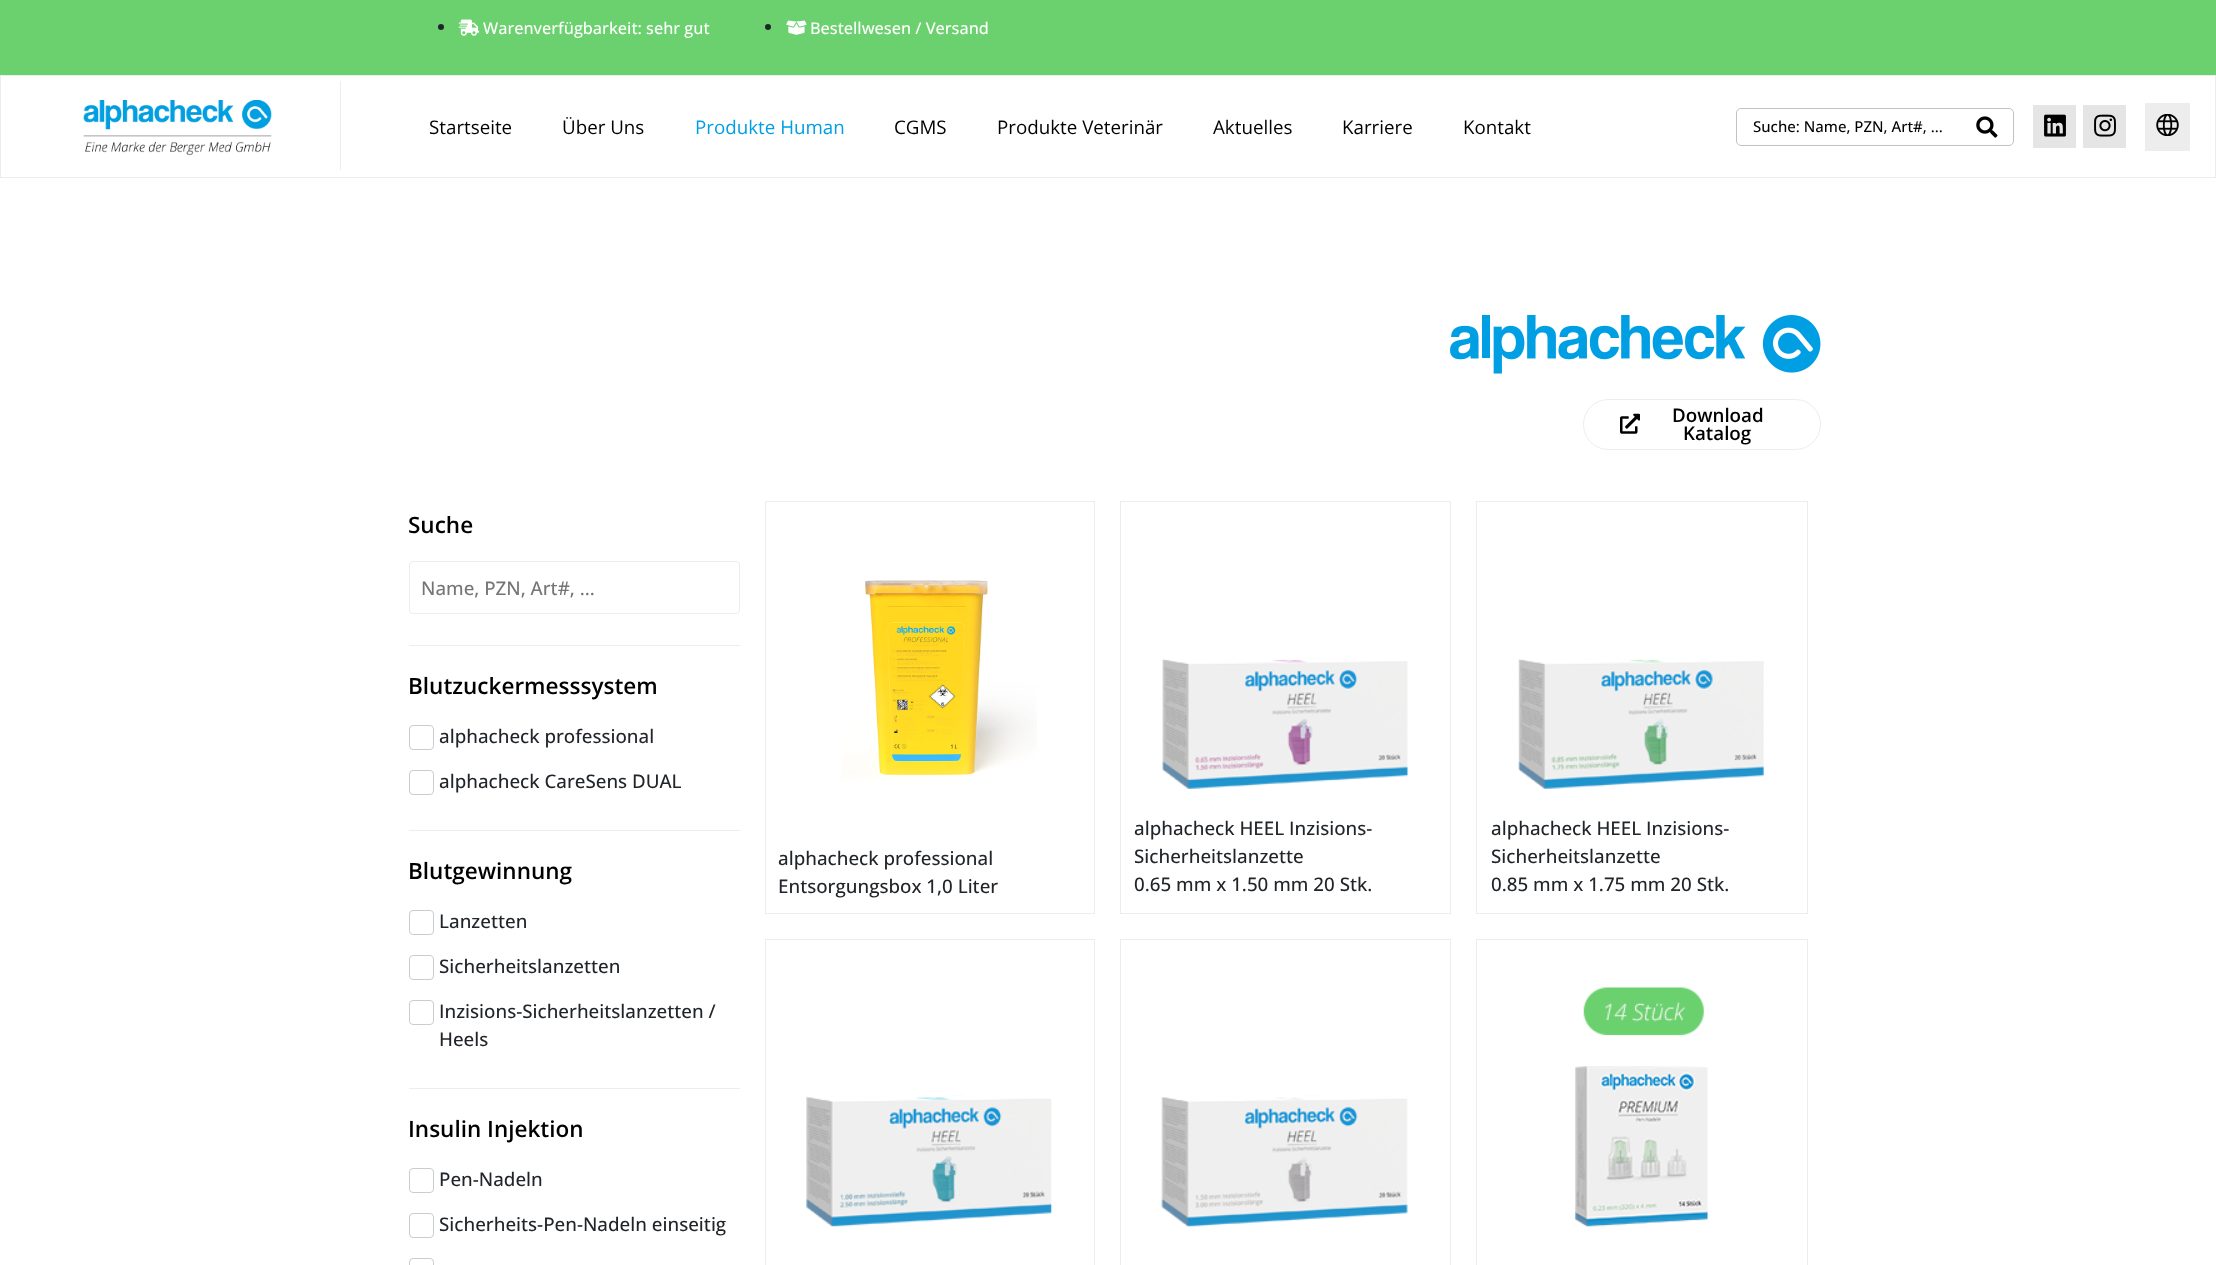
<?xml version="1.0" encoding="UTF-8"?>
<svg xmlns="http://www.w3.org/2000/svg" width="2216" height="1265">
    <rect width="100%" height="100%" fill="#FFFFFF"/>
    <rect x="0" y="0" width="2216" height="75" fill="#6BD16E"/>
    <circle cx="441" cy="27" r="3" fill="#212529"/>
    <image x="458" y="19" width="22" height="17" href="img_01.png"/>
    <text x="483" y="34" font-family="Open Sans" font-size="16.25" font-weight="500" fill="#FFFFFF">Warenverfügbarkeit: sehr gut</text>
    <circle cx="768" cy="27" r="3" fill="#212529"/>
    <image x="786" y="20" width="21" height="15" href="img_02.png"/>
    <text x="810" y="34" font-family="Open Sans" font-size="16.25" font-weight="500" fill="#FFFFFF">Bestellwesen / Versand</text>
    <rect x="0.5" y="75.5" width="2215" height="102" fill="none" stroke="#EDEDED"/>
    <rect x="340" y="81" width="1" height="89" fill="#EDEDED"/>
    <image x="83" y="100" width="189" height="56" href="img_03.png"/>
    <text x="429" y="134" font-family="Open Sans" font-size="18.75" fill="#000000">Startseite</text>
    <text x="562" y="134" font-family="Open Sans" font-size="18.75" fill="#000000">Über Uns</text>
    <text x="695" y="134" font-family="Open Sans" font-size="18.75" fill="#009FE3">Produkte Human</text>
    <text x="894" y="134" font-family="Open Sans" font-size="18.75" fill="#000000">CGMS</text>
    <text x="997" y="134" font-family="Open Sans" font-size="18.75" fill="#000000">Produkte Veterinär</text>
    <text x="1213" y="134" font-family="Open Sans" font-size="18.75" fill="#000000">Aktuelles</text>
    <text x="1342" y="134" font-family="Open Sans" font-size="18.75" fill="#000000">Karriere</text>
    <text x="1463" y="134" font-family="Open Sans" font-size="18.75" fill="#000000">Kontakt</text>
    <rect x="1736.5" y="108.5" width="277" height="37" rx="4.5" fill="none" stroke="#C2C2C2"/>
    <text x="1753" y="132" font-family="Open Sans" font-size="15" font-weight="500" fill="#000000">Suche: Name, PZN, Art#, ...</text>
    <image x="1976" y="116" width="22" height="22" href="img_04.png"/>
    <rect x="2033" y="105" width="43" height="43" fill="#E5E5E5"/>
    <image x="2044" y="114" width="22" height="23" href="img_05.png"/>
    <rect x="2083" y="105" width="43" height="43" fill="#E5E5E5"/>
    <image x="2094" y="114" width="22" height="23" href="img_06.png"/>
    <rect x="2145" y="103" width="45" height="48" fill="#EDEDED"/>
    <image x="2156" y="114" width="23" height="22" href="img_07.png"/>
    <image x="1450" y="315" width="371" height="59" href="img_08.png"/>
    <rect x="1583.5" y="399.5" width="237" height="50" rx="25" fill="none" stroke="#EDEDED"/>
    <image x="1620" y="413" width="20" height="21" href="img_09.png"/>
    <text x="1672" y="422" font-family="Open Sans" font-size="18.75" font-weight="600" fill="#000000">Download</text>
    <text x="1683" y="440" font-family="Open Sans" font-size="18.75" font-weight="600" fill="#000000">Katalog</text>
    <text x="408" y="533" font-family="Open Sans" font-size="22.5" font-weight="600" fill="#000000">Suche</text>
    <rect x="409.5" y="561.5" width="330" height="52" rx="3.5" fill="none" stroke="#EDEDED"/>
    <text x="421" y="595" font-family="Open Sans" font-size="18.75" font-weight="500" fill="#757575">Name, PZN, Art#, ...</text>
    <rect x="409" y="645" width="331" height="1" fill="#EDEDED"/>
    <text x="408" y="694" font-family="Open Sans" font-size="22.5" font-weight="600" fill="#000000">Blutzuckermesssystem</text>
    <rect x="409.5" y="725.5" width="24" height="24" rx="3.5" fill="none" stroke="#CCCCCC"/>
    <text x="439" y="743" font-family="Open Sans" font-size="18.75" font-weight="500" fill="#212529">alphacheck professional</text>
    <rect x="409.5" y="770.5" width="24" height="24" rx="3.5" fill="none" stroke="#CCCCCC"/>
    <text x="439" y="788" font-family="Open Sans" font-size="18.75" font-weight="500" fill="#212529">alphacheck CareSens DUAL</text>
    <rect x="409" y="830" width="331" height="1" fill="#EDEDED"/>
    <text x="408" y="879" font-family="Open Sans" font-size="22.5" font-weight="600" fill="#000000">Blutgewinnung</text>
    <rect x="409.5" y="910.5" width="24" height="24" rx="3.5" fill="none" stroke="#CCCCCC"/>
    <text x="439" y="928" font-family="Open Sans" font-size="18.75" font-weight="500" fill="#212529">Lanzetten</text>
    <rect x="409.5" y="955.5" width="24" height="24" rx="3.5" fill="none" stroke="#CCCCCC"/>
    <text x="439" y="973" font-family="Open Sans" font-size="18.75" font-weight="500" fill="#212529">Sicherheitslanzetten</text>
    <rect x="409.5" y="1000.5" width="24" height="24" rx="3.5" fill="none" stroke="#CCCCCC"/>
    <text font-family="Open Sans" font-size="18.75" font-weight="500" fill="#212529">
        <tspan x="439" y="1018">Inzisions-Sicherheitslanzetten /</tspan>
        <tspan x="439" y="1046">Heels</tspan>
    </text>
    <rect x="409" y="1088" width="331" height="1" fill="#EDEDED"/>
    <text x="408" y="1137" font-family="Open Sans" font-size="22.5" font-weight="600" fill="#000000">Insulin Injektion</text>
    <rect x="409.5" y="1168.5" width="24" height="24" rx="3.5" fill="none" stroke="#CCCCCC"/>
    <text x="439" y="1186" font-family="Open Sans" font-size="18.75" font-weight="500" fill="#212529">Pen-Nadeln</text>
    <rect x="409.5" y="1213.5" width="24" height="24" rx="3.5" fill="none" stroke="#CCCCCC"/>
    <text x="439" y="1231" font-family="Open Sans" font-size="18.75" font-weight="500" fill="#212529">Sicherheits-Pen-Nadeln einseitig</text>
    <rect x="409.5" y="1258.5" width="24" height="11" rx="3.5" fill="none" stroke="#CCCCCC"/>
    <rect x="765.5" y="501.5" width="329" height="412" fill="none" stroke="#EDEDED"/>
    <image x="841" y="580" width="196" height="201" href="img_10.png"/>
    <text font-family="Open Sans" font-size="18.75" font-weight="500" fill="#212529">
        <tspan x="778" y="865">alphacheck professional</tspan>
        <tspan x="778" y="893">Entsorgungsbox 1,0 Liter</tspan>
    </text>
    <rect x="1120.5" y="501.5" width="330" height="412" fill="none" stroke="#EDEDED"/>
    <image x="1162" y="657" width="246" height="132" href="img_11.png"/>
    <text font-family="Open Sans" font-size="18.75" font-weight="500" fill="#212529">
        <tspan x="1134" y="835">alphacheck HEEL Inzisions-</tspan>
        <tspan x="1134" y="863">Sicherheitslanzette</tspan>
        <tspan x="1134" y="891">0.65 mm x 1.50 mm 20 Stk.</tspan>
    </text>
    <rect x="1476.5" y="501.5" width="331" height="412" fill="none" stroke="#EDEDED"/>
    <image x="1518" y="657" width="246" height="132" href="img_12.png"/>
    <text font-family="Open Sans" font-size="18.75" font-weight="500" fill="#212529">
        <tspan x="1491" y="835">alphacheck HEEL Inzisions-</tspan>
        <tspan x="1491" y="863">Sicherheitslanzette</tspan>
        <tspan x="1491" y="891">0.85 mm x 1.75 mm 20 Stk.</tspan>
    </text>
    <rect x="765.5" y="939.5" width="329" height="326" fill="none" stroke="#EDEDED"/>
    <image x="806" y="1095" width="246" height="132" href="img_13.png"/>
    <rect x="1120.5" y="939.5" width="330" height="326" fill="none" stroke="#EDEDED"/>
    <image x="1161" y="1095" width="247" height="132" href="img_14.png"/>
    <rect x="1476.5" y="939.5" width="331" height="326" fill="none" stroke="#EDEDED"/>
    <image x="1574" y="987" width="134" height="240" href="img_15.png"/>
</svg>
